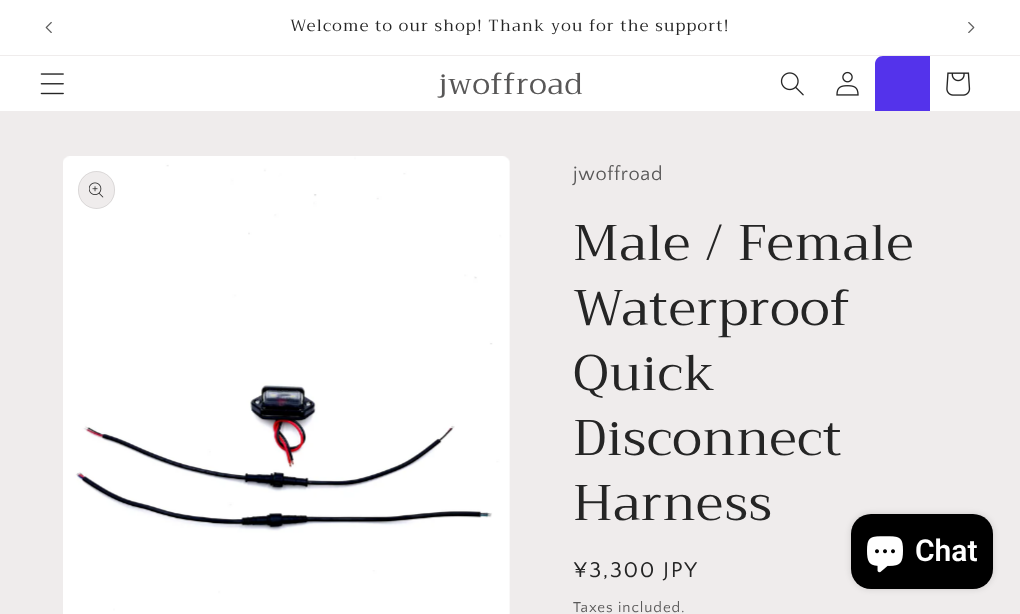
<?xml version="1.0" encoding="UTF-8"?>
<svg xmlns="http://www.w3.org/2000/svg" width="1020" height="614">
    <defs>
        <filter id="blur1" x="-50%" y="-200%" width="200%" height="500%"><feGaussianBlur stdDeviation="3"/></filter>
    </defs>
    <rect width="100%" height="100%" fill="#EFECEC"/>
    <rect x="0" y="0" width="1020" height="55" fill="#FFFFFF"/>
    <image x="45" y="21" width="7" height="12" href="img_01.png"/>
    <text x="290" y="31" font-family="Trirong" font-size="16.25" letter-spacing="1.25" fill="#252525">Welcome to our shop! Thank you for the support!</text>
    <image x="968" y="22" width="7" height="11" href="img_02.png"/>
    <rect x="0" y="56" width="1020" height="55" fill="#FFFFFF"/>
    <image x="40" y="73" width="24" height="22" href="img_03.png"/>
    <text x="438" y="94" font-family="Trirong" font-size="30" letter-spacing="0.75" fill="#585757">jwoffroad</text>
    <image x="780" y="72" width="24" height="24" href="img_04.png"/>
    <image x="836" y="71" width="23" height="25" href="img_05.png"/>
    <path d="M 883 56 H 930 V 111 H 875 V 64 C 875 59.5 878.5 56 883 56 Z" fill="#5433EB"/>
    <image x="946" y="72" width="25" height="24" href="img_06.png"/>
    <image x="63" y="156" width="447" height="458" href="img_07.png"/>
    <rect x="78" y="171" width="37" height="38" rx="18.5" fill="#EFECEC"/>
    <rect x="78.5" y="171.5" width="36" height="37" rx="18" fill="none" stroke="#252525" stroke-opacity="0.1"/>
    <image x="89" y="182" width="15" height="16" href="img_08.png"/>
    <text x="573" y="180" font-family="Quattrocento Sans" font-size="20" letter-spacing="0.75" fill="#585757">jwoffroad</text>
    <text font-family="Trirong" font-size="50" letter-spacing="0.75" fill="#252525">
        <tspan x="573" y="260">Male / Female</tspan>
        <tspan x="573" y="325">Waterproof</tspan>
        <tspan x="573" y="390">Quick</tspan>
        <tspan x="573" y="455">Disconnect</tspan>
        <tspan x="573" y="520">Harness</tspan>
    </text>
    <text x="573" y="577" font-family="Quattrocento Sans" font-size="22.5" letter-spacing="1.6" fill="#252525">¥3,300 JPY</text>
    <text x="573" y="612" font-family="Quattrocento Sans" font-size="15" letter-spacing="0.9" fill="#585757">Taxes included.</text>
    <rect x="851" y="514" width="142" height="75" rx="20" fill="#000000" fill-opacity="0.15" filter="url(#blur1)"/>
    <rect x="851" y="514" width="142" height="75" rx="20" fill="#000000"/>
    <image x="867" y="536" width="36" height="37" href="img_09.png"/>
    <text x="915" y="561" font-family="Roboto" font-size="30" font-weight="600" fill="#FFFFFF">Chat</text>
</svg>
